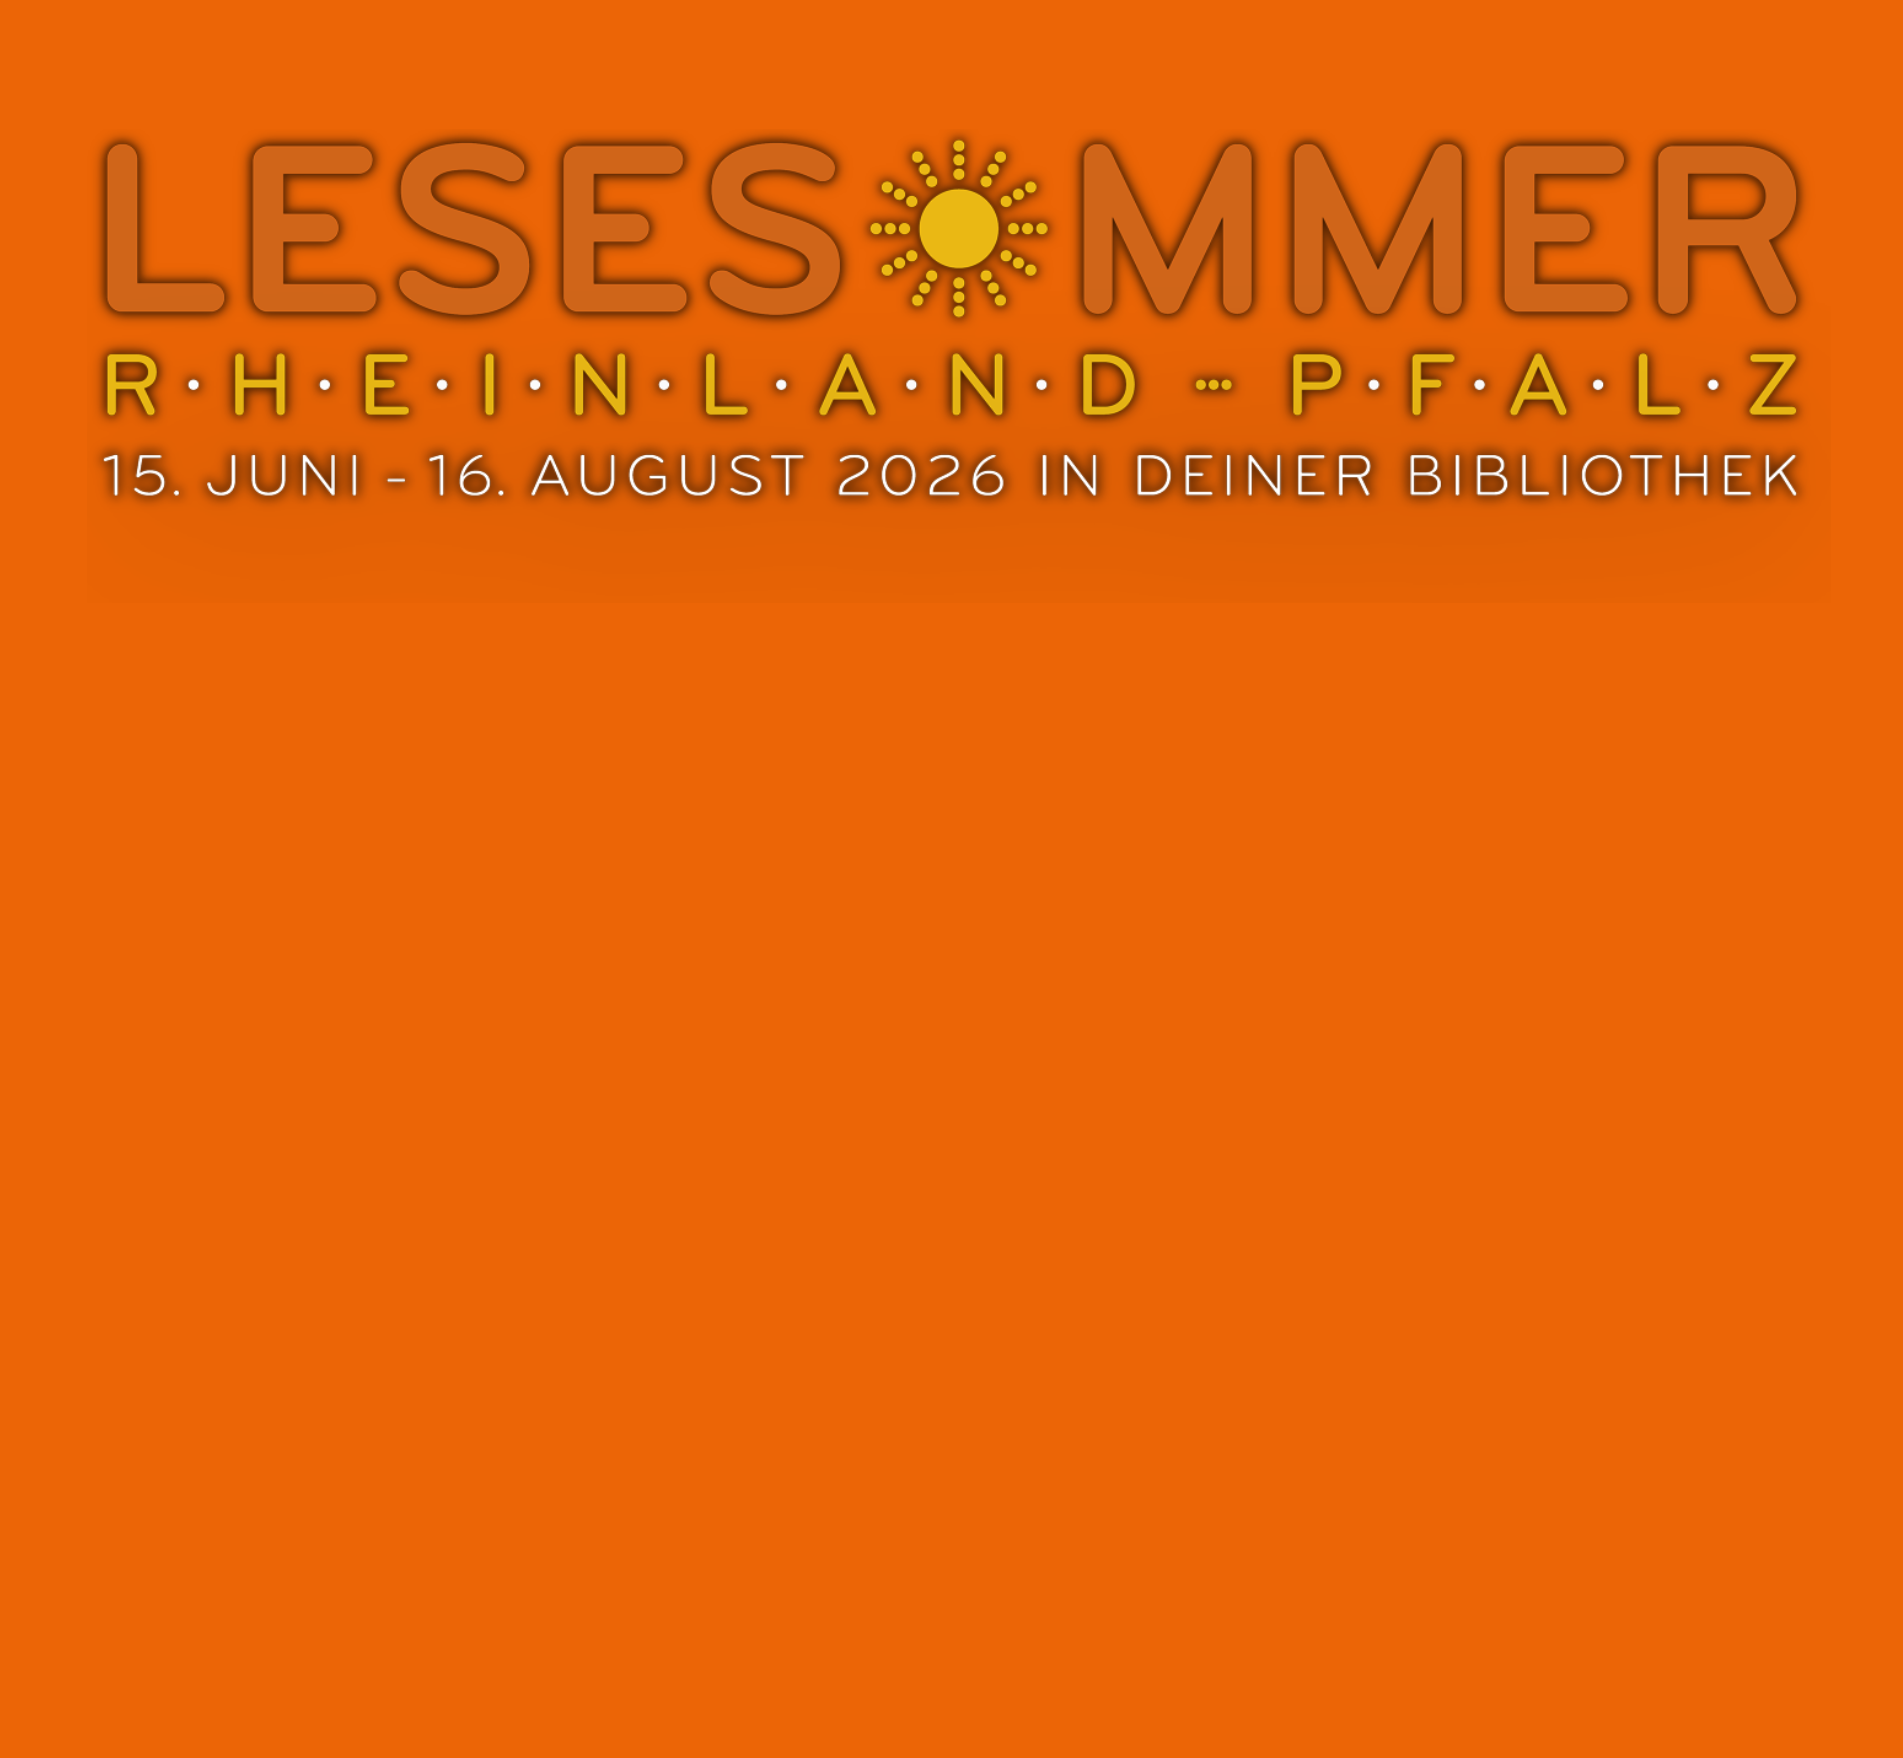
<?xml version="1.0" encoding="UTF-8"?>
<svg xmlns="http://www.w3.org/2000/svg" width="1903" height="1758">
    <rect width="100%" height="100%" fill="#EC6506"/>
    <image x="87" y="129" width="1744" height="474" href="img_01.png"/>
</svg>
